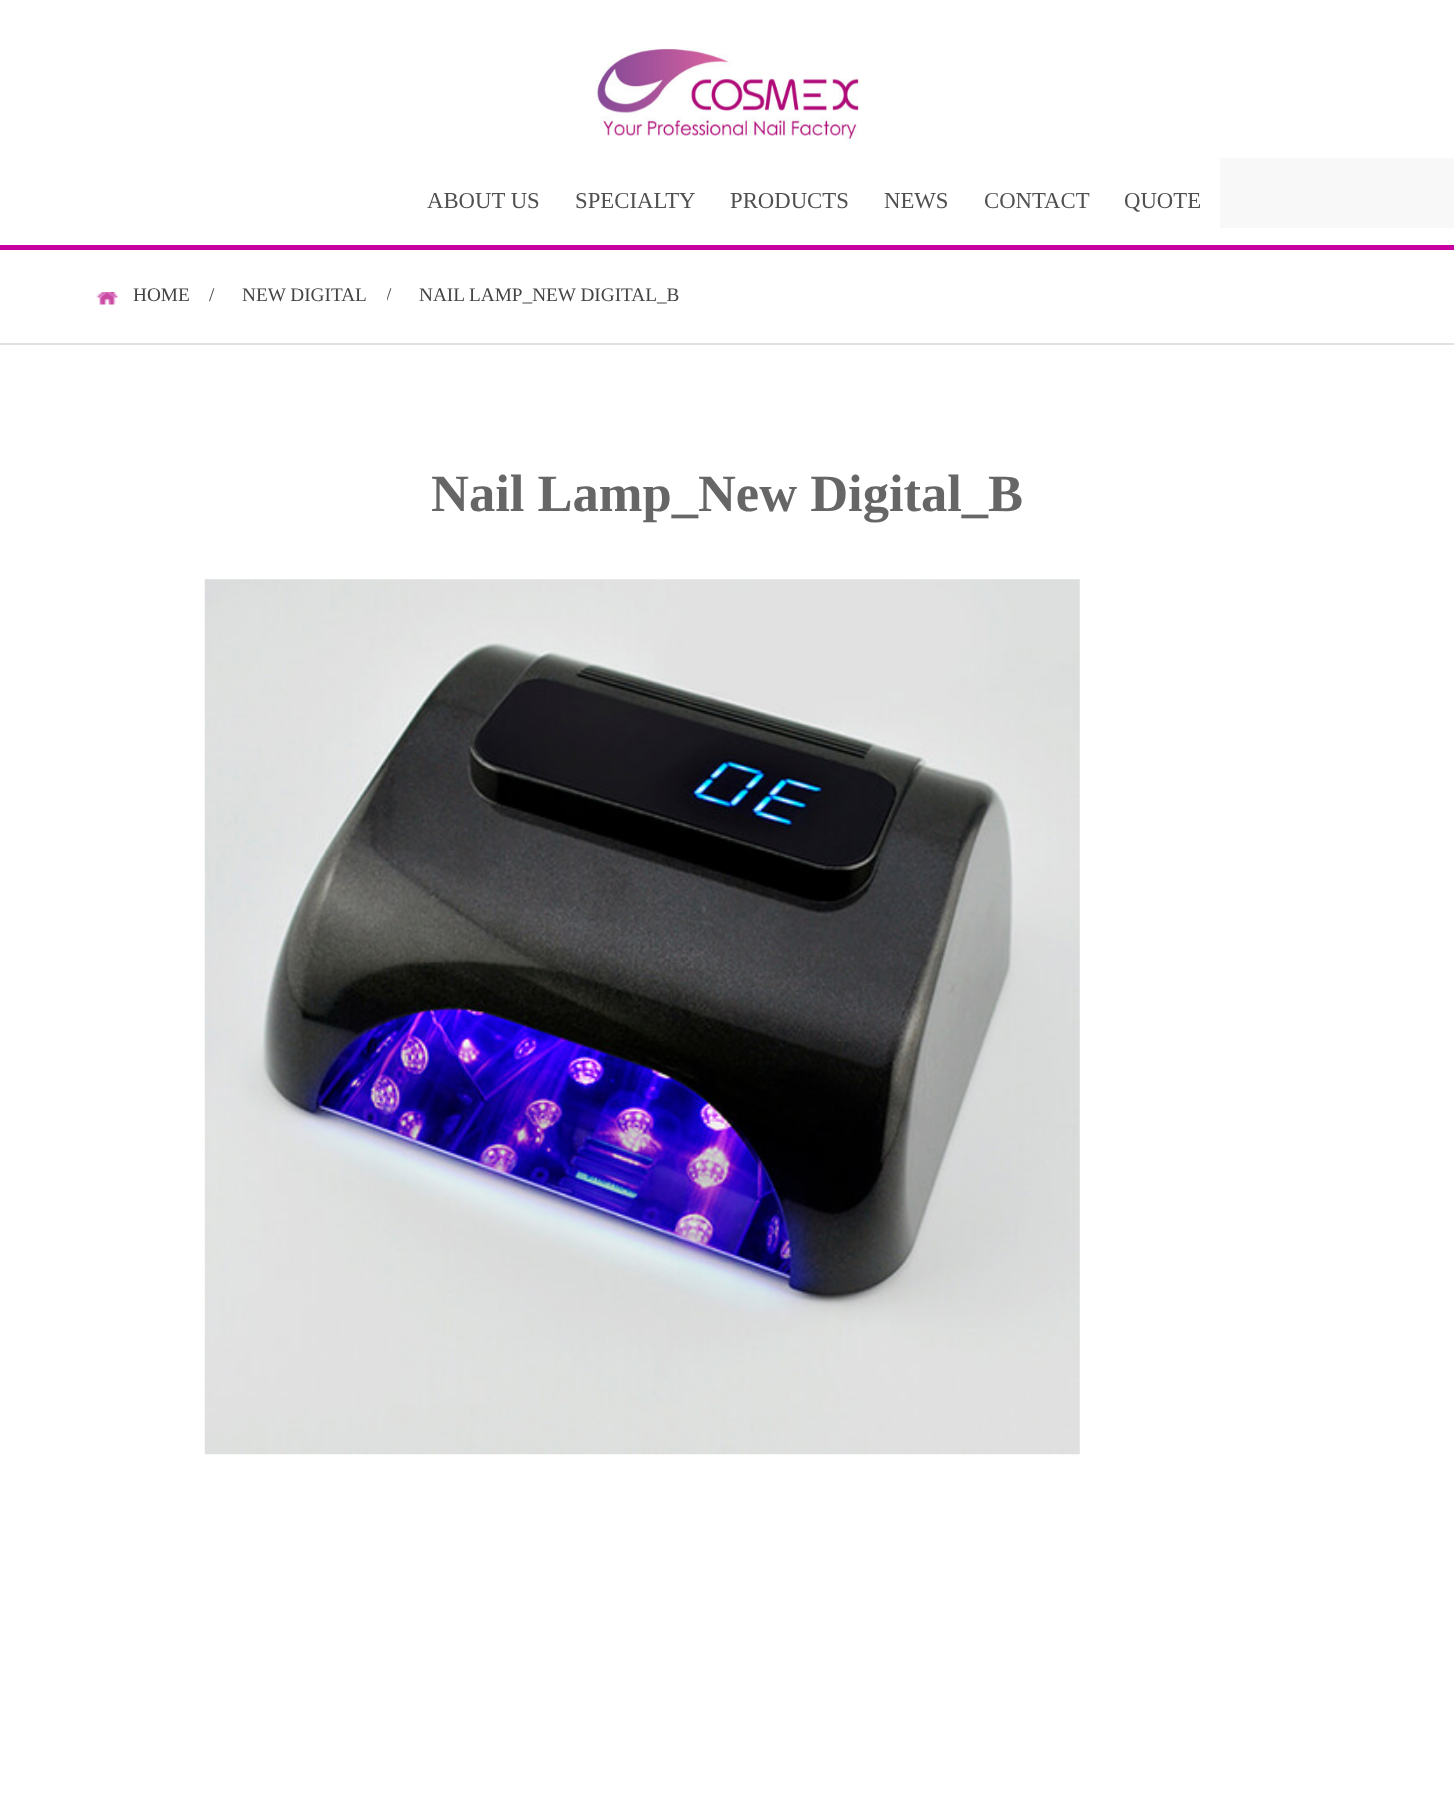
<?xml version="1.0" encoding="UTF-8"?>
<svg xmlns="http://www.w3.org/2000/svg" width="1454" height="1793">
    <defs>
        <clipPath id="clip1"><rect x="387" y="282" width="14" height="26"/></clipPath>
    </defs>
    <rect width="100%" height="100%" fill="#FFFFFF"/>
    <rect x="0" y="245" width="1454" height="5" fill="#C800A1"/>
    <image x="594" y="48" width="267" height="94" href="img_01.png"/>
    <text x="427" y="208" font-family="Liberation Serif" font-size="22.75" fill="#505050">ABOUT US</text>
    <text x="575" y="208" font-family="Liberation Serif" font-size="22.75" fill="#505050">SPECIALTY</text>
    <text x="730" y="208" font-family="Liberation Serif" font-size="22.75" fill="#505050">PRODUCTS</text>
    <text x="884" y="208" font-family="Liberation Serif" font-size="22.75" fill="#505050">NEWS</text>
    <text x="984" y="208" font-family="Liberation Serif" font-size="22.75" fill="#505050">CONTACT</text>
    <text x="1124" y="208" font-family="Liberation Serif" font-size="22.75" fill="#505050">QUOTE</text>
    <rect x="1220" y="158" width="234" height="70" fill="#F8F8F8"/>
    <image x="96" y="292" width="22" height="13" href="img_02.png"/>
    <text x="133" y="301" font-family="Liberation Serif" font-size="19.25" fill="#444444">HOME</text>
    <text x="209" y="301" font-family="Liberation Serif" font-size="19.25" fill="#444444">/</text>
    <text x="242" y="301" font-family="Liberation Serif" font-size="19.25" fill="#444444">NEW DIGITAL</text>
    <g clip-path="url(#clip1)">
        <text x="386" y="301" font-family="Liberation Serif" font-size="19.25" fill="#444444">/</text>
    </g>
    <text x="419" y="301" font-family="Liberation Serif" font-size="19.25" fill="#444444">NAIL LAMP_NEW DIGITAL_B</text>
    <rect x="0" y="343" width="1454" height="2" fill="#E1E1E1"/>
    <text x="431" y="511" font-family="Liberation Serif" font-size="52.5" font-weight="700" fill="#666666">Nail Lamp_New Digital_B</text>
    <image x="204" y="579" width="876" height="876" href="img_03.png"/>
</svg>
